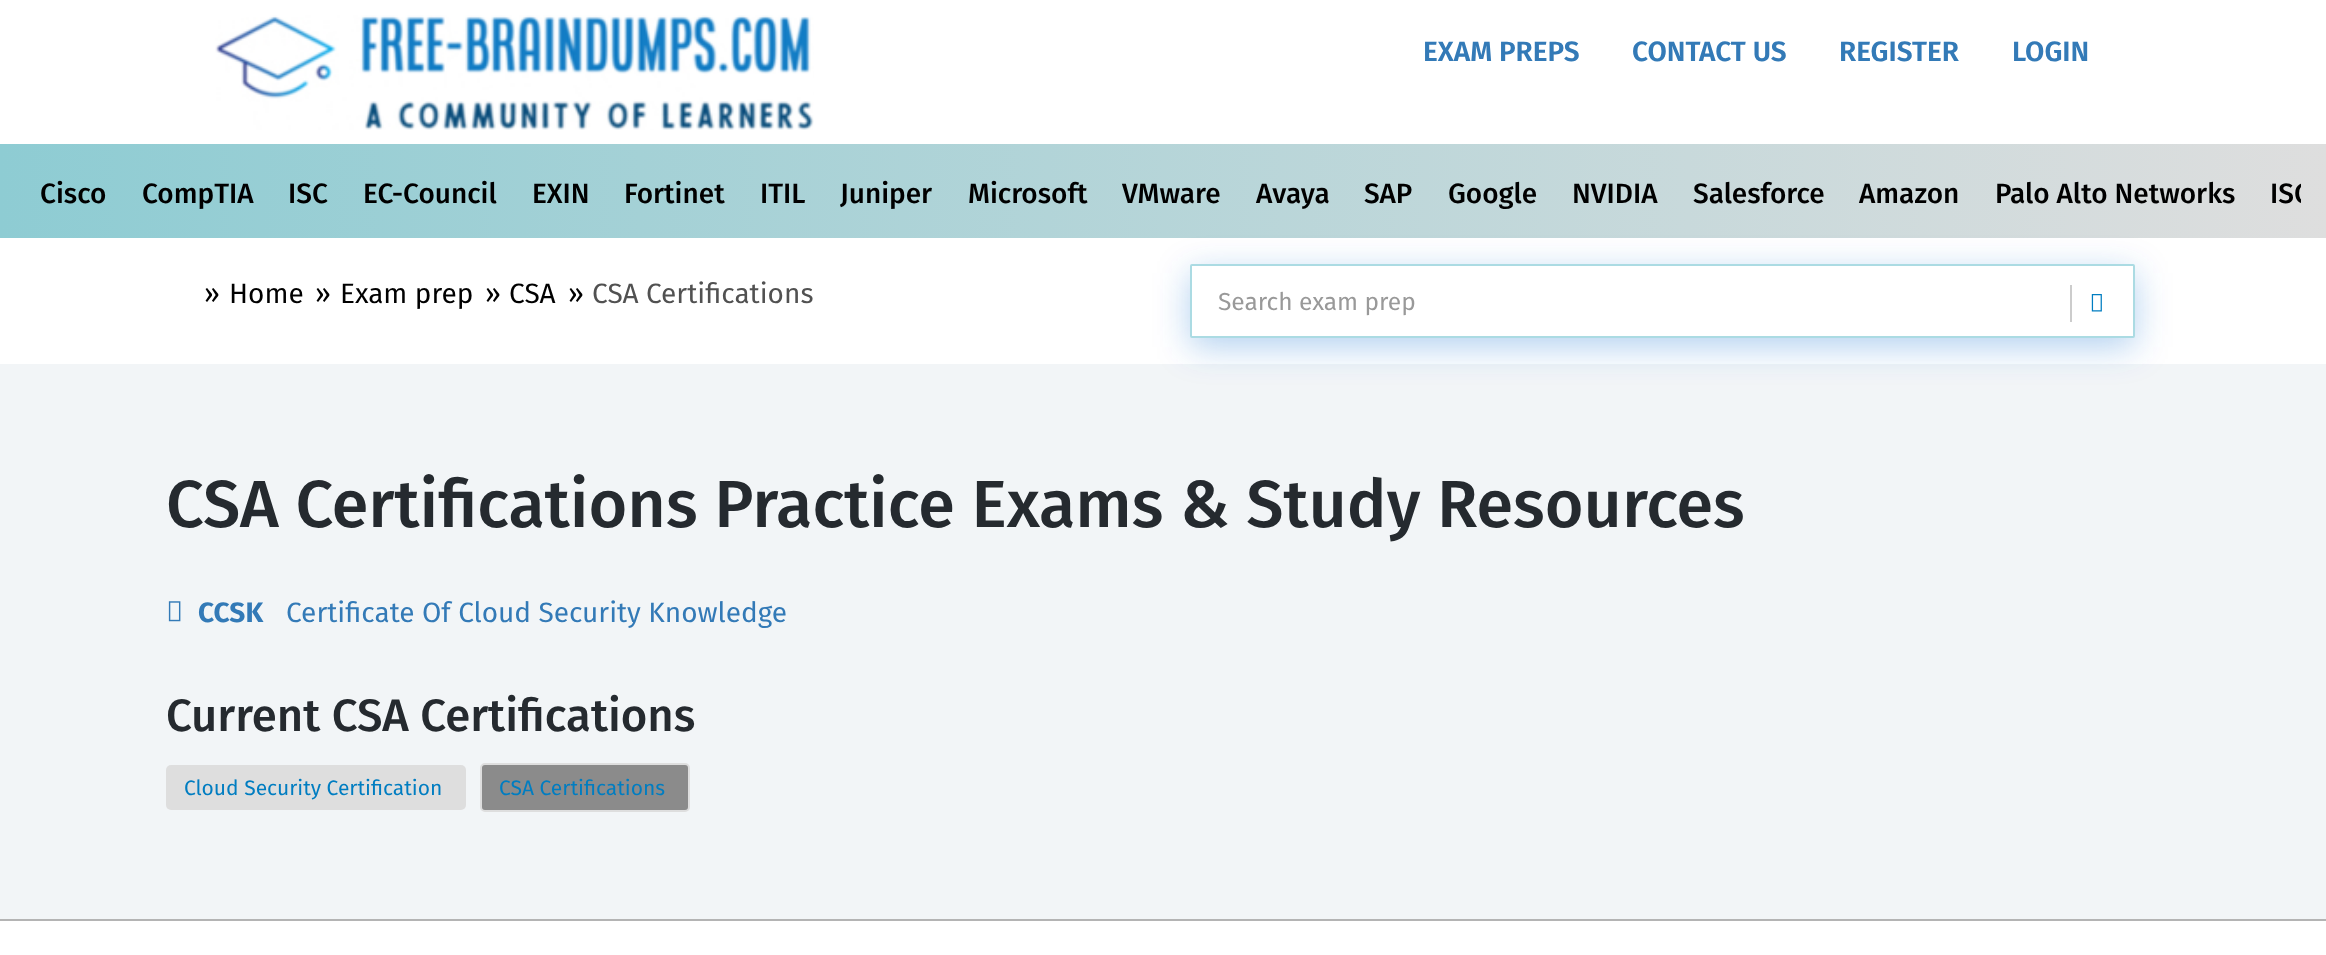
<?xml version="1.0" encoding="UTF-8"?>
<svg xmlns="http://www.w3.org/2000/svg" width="2326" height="955">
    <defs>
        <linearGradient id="g1" gradientUnits="userSpaceOnUse" x1="0" y1="191" x2="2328" y2="191"><stop offset="0" stop-color="#8ECCD3"/><stop offset="1" stop-color="#DEDEDE"/></linearGradient>
        <clipPath id="clip1"><rect x="26" y="144" width="2275" height="94"/></clipPath>
        <filter id="blur1" x="-50%" y="-200%" width="200%" height="500%"><feGaussianBlur stdDeviation="17.5"/></filter>
    </defs>
    <rect width="100%" height="100%" fill="#F2F5F7"/>
    <rect x="0" y="0" width="2326" height="144" fill="#FFFFFF"/>
    <image x="215" y="15" width="599" height="115" href="img_01.png"/>
    <text x="1423" y="61" font-family="Fira Sans" font-size="28" font-weight="600" fill="#337AB7">EXAM PREPS</text>
    <text x="1632" y="61" font-family="Fira Sans" font-size="28" font-weight="600" fill="#337AB7">CONTACT US</text>
    <text x="1839" y="61" font-family="Fira Sans" font-size="28" font-weight="600" fill="#337AB7">REGISTER</text>
    <text x="2012" y="61" font-family="Fira Sans" font-size="28" font-weight="600" fill="#337AB7">LOGIN</text>
    <rect x="0" y="144" width="2326" height="94" fill="url(#g1)"/>
    <text x="40" y="203" font-family="Fira Sans" font-size="28" font-weight="500" fill="#000000">Cisco</text>
    <text x="142" y="203" font-family="Fira Sans" font-size="28" font-weight="500" fill="#000000">CompTIA</text>
    <text x="288" y="203" font-family="Fira Sans" font-size="28" font-weight="500" fill="#000000">ISC</text>
    <text x="363" y="203" font-family="Fira Sans" font-size="28" font-weight="500" fill="#000000">EC-Council</text>
    <text x="532" y="203" font-family="Fira Sans" font-size="28" font-weight="500" fill="#000000">EXIN</text>
    <text x="624" y="203" font-family="Fira Sans" font-size="28" font-weight="500" fill="#000000">Fortinet</text>
    <text x="760" y="203" font-family="Fira Sans" font-size="28" font-weight="500" fill="#000000">ITIL</text>
    <text x="840" y="203" font-family="Fira Sans" font-size="28" font-weight="500" fill="#000000">Juniper</text>
    <text x="968" y="203" font-family="Fira Sans" font-size="28" font-weight="500" fill="#000000">Microsoft</text>
    <text x="1122" y="203" font-family="Fira Sans" font-size="28" font-weight="500" fill="#000000">VMware</text>
    <text x="1256" y="203" font-family="Fira Sans" font-size="28" font-weight="500" fill="#000000">Avaya</text>
    <text x="1364" y="203" font-family="Fira Sans" font-size="28" font-weight="500" fill="#000000">SAP</text>
    <text x="1448" y="203" font-family="Fira Sans" font-size="28" font-weight="500" fill="#000000">Google</text>
    <text x="1572" y="203" font-family="Fira Sans" font-size="28" font-weight="500" fill="#000000">NVIDIA</text>
    <text x="1693" y="203" font-family="Fira Sans" font-size="28" font-weight="500" fill="#000000">Salesforce</text>
    <text x="1859" y="203" font-family="Fira Sans" font-size="28" font-weight="500" fill="#000000">Amazon</text>
    <text x="1995" y="203" font-family="Fira Sans" font-size="28" font-weight="500" fill="#000000">Palo Alto Networks</text>
    <g clip-path="url(#clip1)">
        <text x="2270" y="203" font-family="Fira Sans" font-size="28" font-weight="500" fill="#000000">ISC</text>
    </g>
    <rect x="0" y="238" width="2326" height="126" fill="#FFFFFF"/>
    <text x="204" y="303" font-family="Fira Sans" font-size="28" fill="#000000">»</text>
    <text x="229" y="303" font-family="Fira Sans" font-size="28" fill="#000000">Home</text>
    <text x="315" y="303" font-family="Fira Sans" font-size="28" fill="#000000">»</text>
    <text x="340" y="303" font-family="Fira Sans" font-size="28" fill="#000000">Exam prep</text>
    <text x="485" y="303" font-family="Fira Sans" font-size="28" fill="#000000">»</text>
    <text x="509" y="303" font-family="Fira Sans" font-size="28" fill="#000000">CSA</text>
    <text x="568" y="303" font-family="Fira Sans" font-size="28" fill="#000000">»</text>
    <text x="592" y="303" font-family="Fira Sans" font-size="28" fill="#515151">CSA Certifications</text>
    <rect x="1190" y="273" width="945" height="74" rx="2" fill="#0066CC" fill-opacity="0.3" filter="url(#blur1)"/>
    <rect x="1191" y="265" width="943" height="72" rx="1" fill="#FFFFFF" stroke="#ABDBE3" stroke-width="2"/>
    <text x="1218" y="310" font-family="Fira Sans" font-size="24.5" fill="#999999">Search exam prep</text>
    <rect x="2070" y="285" width="2" height="37" fill="#CCCCCC"/>
    <image x="2091" y="294" width="11" height="18" href="img_02.png"/>
    <text x="166" y="527" font-family="Fira Sans" font-size="66.5" font-weight="500" fill="#252A2F">CSA Certifications Practice Exams &amp; Study Resources</text>
    <image x="168" y="601" width="13" height="21" href="img_03.png"/>
    <text x="198" y="622" font-family="Fira Sans" font-size="28" font-weight="700" fill="#337AB7">CCSK</text>
    <text x="286" y="622" font-family="Fira Sans" font-size="28" fill="#337AB7">Certificate Of Cloud Security Knowledge</text>
    <text x="166" y="731" font-family="Fira Sans" font-size="45.5" font-weight="500" fill="#252A2F">Current CSA Certifications</text>
    <rect x="166" y="765" width="300" height="45" rx="5" fill="#DEDEDE"/>
    <text x="184" y="795" font-family="Fira Sans" font-size="21" fill="#007DC1">Cloud Security Certification</text>
    <rect x="481" y="764" width="208" height="47" rx="4" fill="#8B8B8B" stroke="#DEDEDE" stroke-width="2"/>
    <text x="499" y="795" font-family="Fira Sans" font-size="21" fill="#007DC1">CSA Certifications</text>
    <rect x="0" y="921" width="2326" height="34" fill="#FFFFFF"/>
    <rect x="0" y="919" width="2326" height="2" fill="#B4B4B4"/>
</svg>
